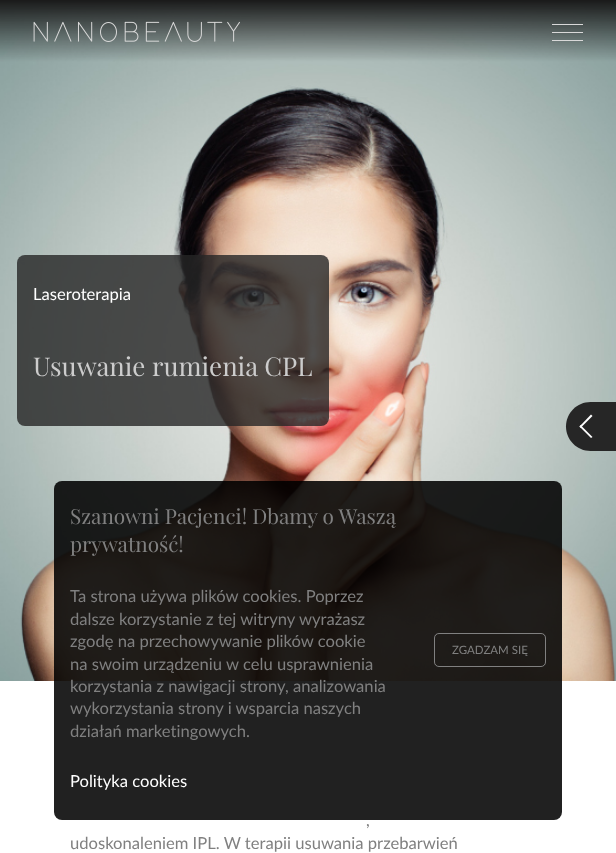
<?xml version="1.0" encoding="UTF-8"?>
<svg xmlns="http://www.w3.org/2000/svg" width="616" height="853">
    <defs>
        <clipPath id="clip1"><path d="M 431 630 H 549 V 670 H 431 Z M 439 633 H 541 C 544 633 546 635 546 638 V 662 C 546 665 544 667 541 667 H 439 C 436 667 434 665 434 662 V 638 C 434 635 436 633 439 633 Z" clip-rule="evenodd"/></clipPath>
        <filter id="blur1" x="-50%" y="-200%" width="200%" height="500%"><feGaussianBlur stdDeviation="0.5"/></filter>
    </defs>
    <rect width="100%" height="100%" fill="#FFFFFF"/>
    <image x="0" y="0" width="616" height="681" href="img_01.png"/>
    <image x="33" y="21" width="207" height="21" href="img_02.png"/>
    <rect x="552" y="24" width="31" height="1" fill="#D9D9D9"/>
    <rect x="552" y="32" width="31" height="1" fill="#D9D9D9"/>
    <rect x="552" y="40" width="31" height="1" fill="#D9D9D9"/>
    <rect x="17" y="255" width="312" height="171" rx="8" fill="#262626" fill-opacity="0.8"/>
    <text x="33" y="300" font-family="Lato" font-size="16.6" fill="#FFFFFF">Laseroterapia</text>
    <text x="33" y="376" font-family="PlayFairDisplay" font-size="25.9" fill="#CCCCCC">Usuwanie rumienia CPL</text>
    <rect x="54" y="481" width="508" height="339" rx="8" fill="#000000" fill-opacity="0.87"/>
    <text font-family="PlayFairDisplay" font-size="20.75" fill="#808080">
        <tspan x="70" y="524">Szanowni Pacjenci! Dbamy o Waszą</tspan>
        <tspan x="70" y="552">prywatność!</tspan>
    </text>
    <text font-family="Lato" font-size="16.6" fill="#808080">
        <tspan x="70" y="602">Ta strona używa plików cookies. Poprzez</tspan>
        <tspan x="70" y="625">dalsze korzystanie z tej witryny wyrażasz</tspan>
        <tspan x="70" y="647">zgodę na przechowywanie plików cookie</tspan>
        <tspan x="70" y="670">na swoim urządzeniu w celu usprawnienia</tspan>
        <tspan x="70" y="692">korzystania z nawigacji strony, analizowania</tspan>
        <tspan x="70" y="714">wykorzystania strony i wsparcia naszych</tspan>
        <tspan x="70" y="737">działań marketingowych.</tspan>
    </text>
    <text x="70" y="787" font-family="Lato" font-size="16.6" fill="#FFFFFF">Polityka cookies</text>
    <g clip-path="url(#clip1)">
        <rect x="434" y="633" width="112" height="34" rx="5" fill="#808080" fill-opacity="0.75" filter="url(#blur1)"/>
    </g>
    <rect x="434.5" y="633.5" width="111" height="33" rx="4.5" fill="none" stroke="#808080"/>
    <text x="452" y="654" font-family="Lato" font-size="11.5" fill="#808080">ZGADZAM SIĘ</text>
    <path d="M 590.5 402 H 616 V 451 H 590.5 C 577 451 566 440 566 426.5 C 566 413 577 402 590.5 402 Z" fill="#262626"/>
    <path d="M 580.5 425 L 592.5 437 L 591 438 L 579.5 426.5 Z" fill="#FFFFFF"/>
    <path d="M 591 414.5 L 592.5 416 L 580.5 428 L 579.5 426.5 Z" fill="#FFFFFF"/>
    <text x="366" y="826" font-family="Lato" font-size="16.6" fill="#808080">,</text>
    <text x="70" y="849" font-family="Lato" font-size="16.6" fill="#808080">udoskonaleniem IPL. W terapii usuwania przebarwień</text>
</svg>
